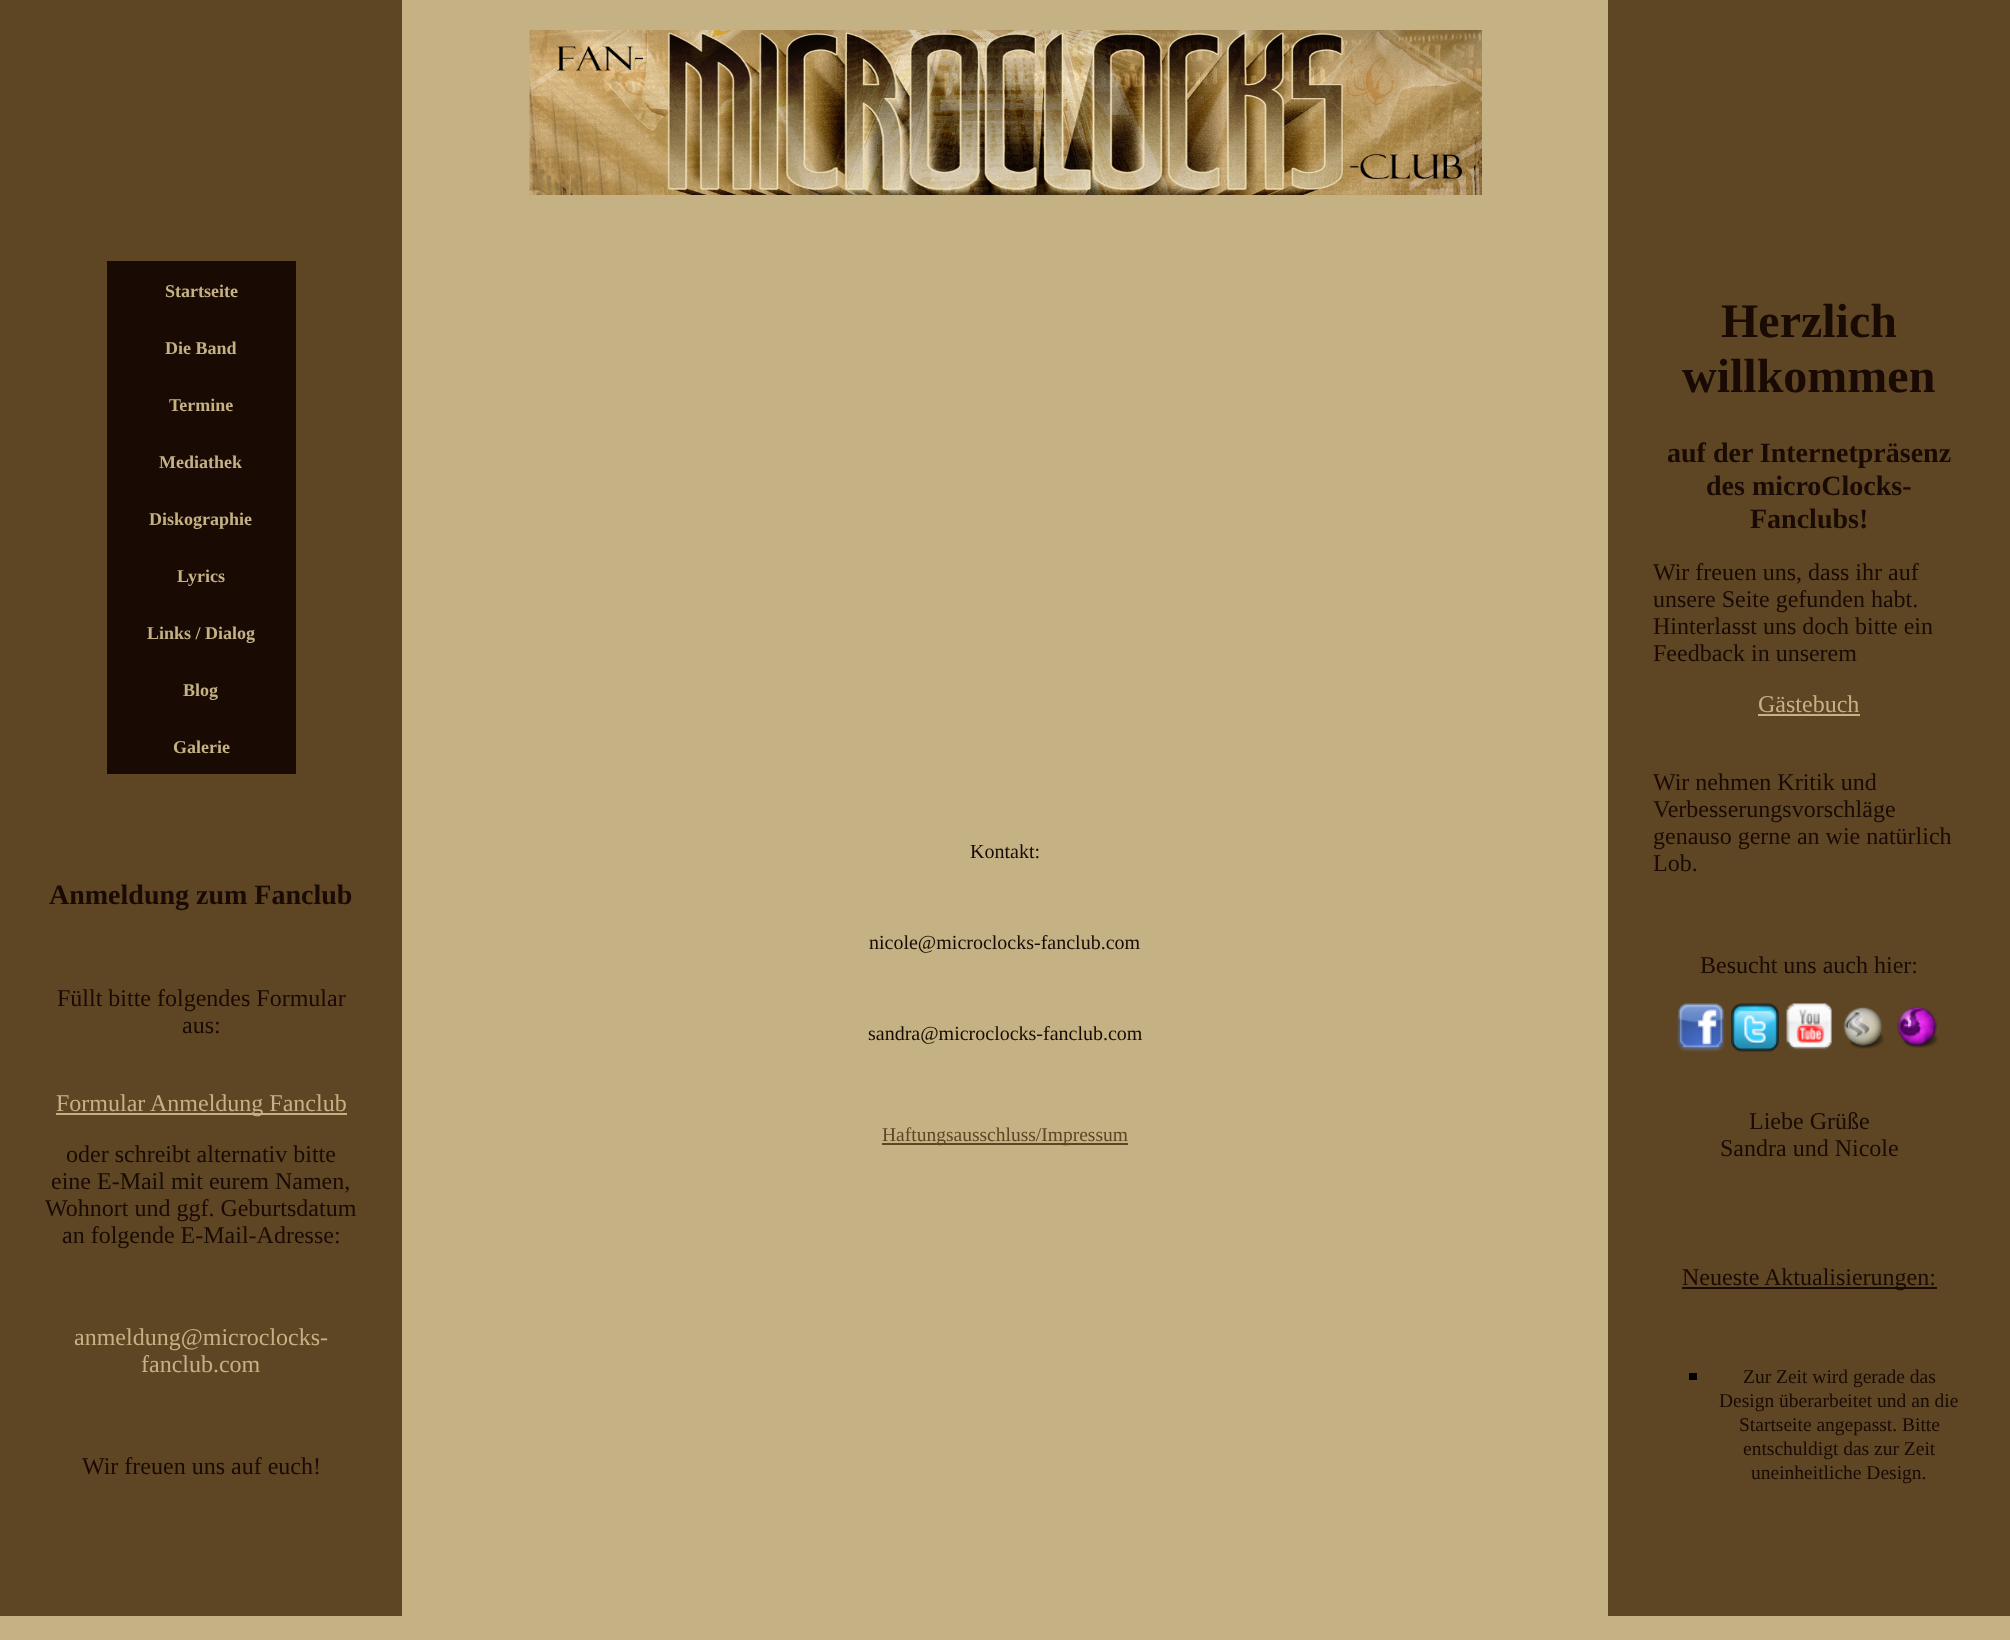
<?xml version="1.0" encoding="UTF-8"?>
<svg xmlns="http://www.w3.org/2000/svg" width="2010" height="1640">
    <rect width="100%" height="100%" fill="#C4B284"/>
    <rect x="0" y="0" width="402" height="1616" fill="#5E4624"/>
    <image x="529" y="30" width="953" height="165" href="img_01.png"/>
    <rect x="1608" y="0" width="402" height="1616" fill="#5E4624"/>
    <rect x="107" y="261" width="189" height="513" fill="#190A03"/>
    <text x="165" y="297" font-family="Liberation Serif" font-size="18" font-weight="700" fill="#C4B284">Startseite</text>
    <text x="165" y="354" font-family="Liberation Serif" font-size="18" font-weight="700" fill="#C4B284">Die Band</text>
    <text x="169" y="411" font-family="Liberation Serif" font-size="18" font-weight="700" fill="#C4B284">Termine</text>
    <text x="159" y="468" font-family="Liberation Serif" font-size="18" font-weight="700" fill="#C4B284">Mediathek</text>
    <text x="149" y="525" font-family="Liberation Serif" font-size="18" font-weight="700" fill="#C4B284">Diskographie</text>
    <text x="177" y="582" font-family="Liberation Serif" font-size="18" font-weight="700" fill="#C4B284">Lyrics</text>
    <text x="147" y="639" font-family="Liberation Serif" font-size="18" font-weight="700" fill="#C4B284">Links / Dialog</text>
    <text x="183" y="696" font-family="Liberation Serif" font-size="18" font-weight="700" fill="#C4B284">Blog</text>
    <text x="173" y="753" font-family="Liberation Serif" font-size="18" font-weight="700" fill="#C4B284">Galerie</text>
    <text x="49" y="904" font-family="Liberation Serif" font-size="28" font-weight="700" fill="#190A03">Anmeldung zum Fanclub</text>
    <text x="57" y="1006" font-family="Liberation Serif" font-size="24" fill="#190A03">Füllt bitte folgendes Formular</text>
    <text x="182" y="1033" font-family="Liberation Serif" font-size="24" fill="#190A03">aus:</text>
    <rect x="56" y="1113" width="291" height="2" fill="#C4B284"/>
    <text x="56" y="1111" font-family="Liberation Serif" font-size="24" fill="#C4B284">Formular Anmeldung Fanclub</text>
    <text x="66" y="1162" font-family="Liberation Serif" font-size="24" fill="#190A03">oder schreibt alternativ bitte</text>
    <text x="51" y="1189" font-family="Liberation Serif" font-size="24" fill="#190A03">eine E-Mail mit eurem Namen,</text>
    <text x="45" y="1216" font-family="Liberation Serif" font-size="24" fill="#190A03">Wohnort und ggf. Geburtsdatum</text>
    <text x="62" y="1243" font-family="Liberation Serif" font-size="24" fill="#190A03">an folgende E-Mail-Adresse:</text>
    <text x="74" y="1345" font-family="Liberation Serif" font-size="24" fill="#C4B284">anmeldung@microclocks-</text>
    <text x="141" y="1372" font-family="Liberation Serif" font-size="24" fill="#C4B284">fanclub.com</text>
    <text x="82" y="1474" font-family="Liberation Serif" font-size="24" fill="#190A03">Wir freuen uns auf euch!</text>
    <text x="970" y="858" font-family="Liberation Serif" font-size="20" fill="#190A03">Kontakt:</text>
    <text x="869" y="949" font-family="Liberation Serif" font-size="20" fill="#190A03">nicole@microclocks-fanclub.com</text>
    <text x="868" y="1040" font-family="Liberation Serif" font-size="20" fill="#190A03">sandra@microclocks-fanclub.com</text>
    <rect x="882" y="1143" width="246" height="2" fill="#5E4624"/>
    <text x="882" y="1141" font-family="Liberation Serif" font-size="19.5" fill="#5E4624">Haftungsausschluss/Impressum</text>
    <text x="1721" y="337" font-family="Liberation Serif" font-size="48" font-weight="700" fill="#190A03">Herzlich</text>
    <text x="1682" y="392" font-family="Liberation Serif" font-size="48" font-weight="700" fill="#190A03">willkommen</text>
    <text x="1667" y="462" font-family="Liberation Serif" font-size="28" font-weight="700" fill="#190A03">auf der Internetpräsenz</text>
    <text x="1706" y="495" font-family="Liberation Serif" font-size="28" font-weight="700" fill="#190A03">des microClocks-</text>
    <text x="1750" y="528" font-family="Liberation Serif" font-size="28" font-weight="700" fill="#190A03">Fanclubs!</text>
    <text font-family="Liberation Serif" font-size="24" fill="#190A03">
        <tspan x="1653" y="580">Wir freuen uns, dass ihr auf</tspan>
        <tspan x="1653" y="607">unsere Seite gefunden habt.</tspan>
        <tspan x="1653" y="634">Hinterlasst uns doch bitte ein</tspan>
        <tspan x="1653" y="661">Feedback in unserem</tspan>
    </text>
    <text x="1758" y="712" font-family="Liberation Serif" font-size="24" fill="#C4B284">Gästebuch</text>
    <rect x="1758" y="714" width="102" height="2" fill="#C4B284"/>
    <text font-family="Liberation Serif" font-size="24" fill="#190A03">
        <tspan x="1653" y="790">Wir nehmen Kritik und</tspan>
        <tspan x="1653" y="817">Verbesserungsvorschläge</tspan>
        <tspan x="1653" y="844">genauso gerne an wie natürlich</tspan>
        <tspan x="1653" y="871">Lob.</tspan>
    </text>
    <text x="1700" y="973" font-family="Liberation Serif" font-size="24" fill="#190A03">Besucht uns auch hier:</text>
    <image x="1677" y="1003" width="48" height="49" href="img_02.png"/>
    <image x="1731" y="1003" width="48" height="49" href="img_03.png"/>
    <image x="1786" y="1003" width="46" height="48" href="img_04.png"/>
    <image x="1843" y="1006" width="41" height="43" href="img_05.png"/>
    <image x="1897" y="1006" width="41" height="42" href="img_06.png"/>
    <text x="1749" y="1129" font-family="Liberation Serif" font-size="24" fill="#190A03">Liebe Grüße</text>
    <text x="1720" y="1156" font-family="Liberation Serif" font-size="24" fill="#190A03">Sandra und Nicole</text>
    <rect x="1682" y="1287" width="255" height="2" fill="#190A03"/>
    <text x="1682" y="1285" font-family="Liberation Serif" font-size="24" fill="#190A03">Neueste Aktualisierungen:</text>
    <rect x="1689" y="1373" width="8" height="7" fill="#000000"/>
    <text x="1743" y="1383" font-family="Liberation Serif" font-size="19.5" fill="#190A03">Zur Zeit wird gerade das</text>
    <text x="1719" y="1407" font-family="Liberation Serif" font-size="19.5" fill="#190A03">Design überarbeitet und an die</text>
    <text x="1739" y="1431" font-family="Liberation Serif" font-size="19.5" fill="#190A03">Startseite angepasst. Bitte</text>
    <text x="1743" y="1455" font-family="Liberation Serif" font-size="19.5" fill="#190A03">entschuldigt das zur Zeit</text>
    <text x="1751" y="1479" font-family="Liberation Serif" font-size="19.5" fill="#190A03">uneinheitliche Design.</text>
</svg>
